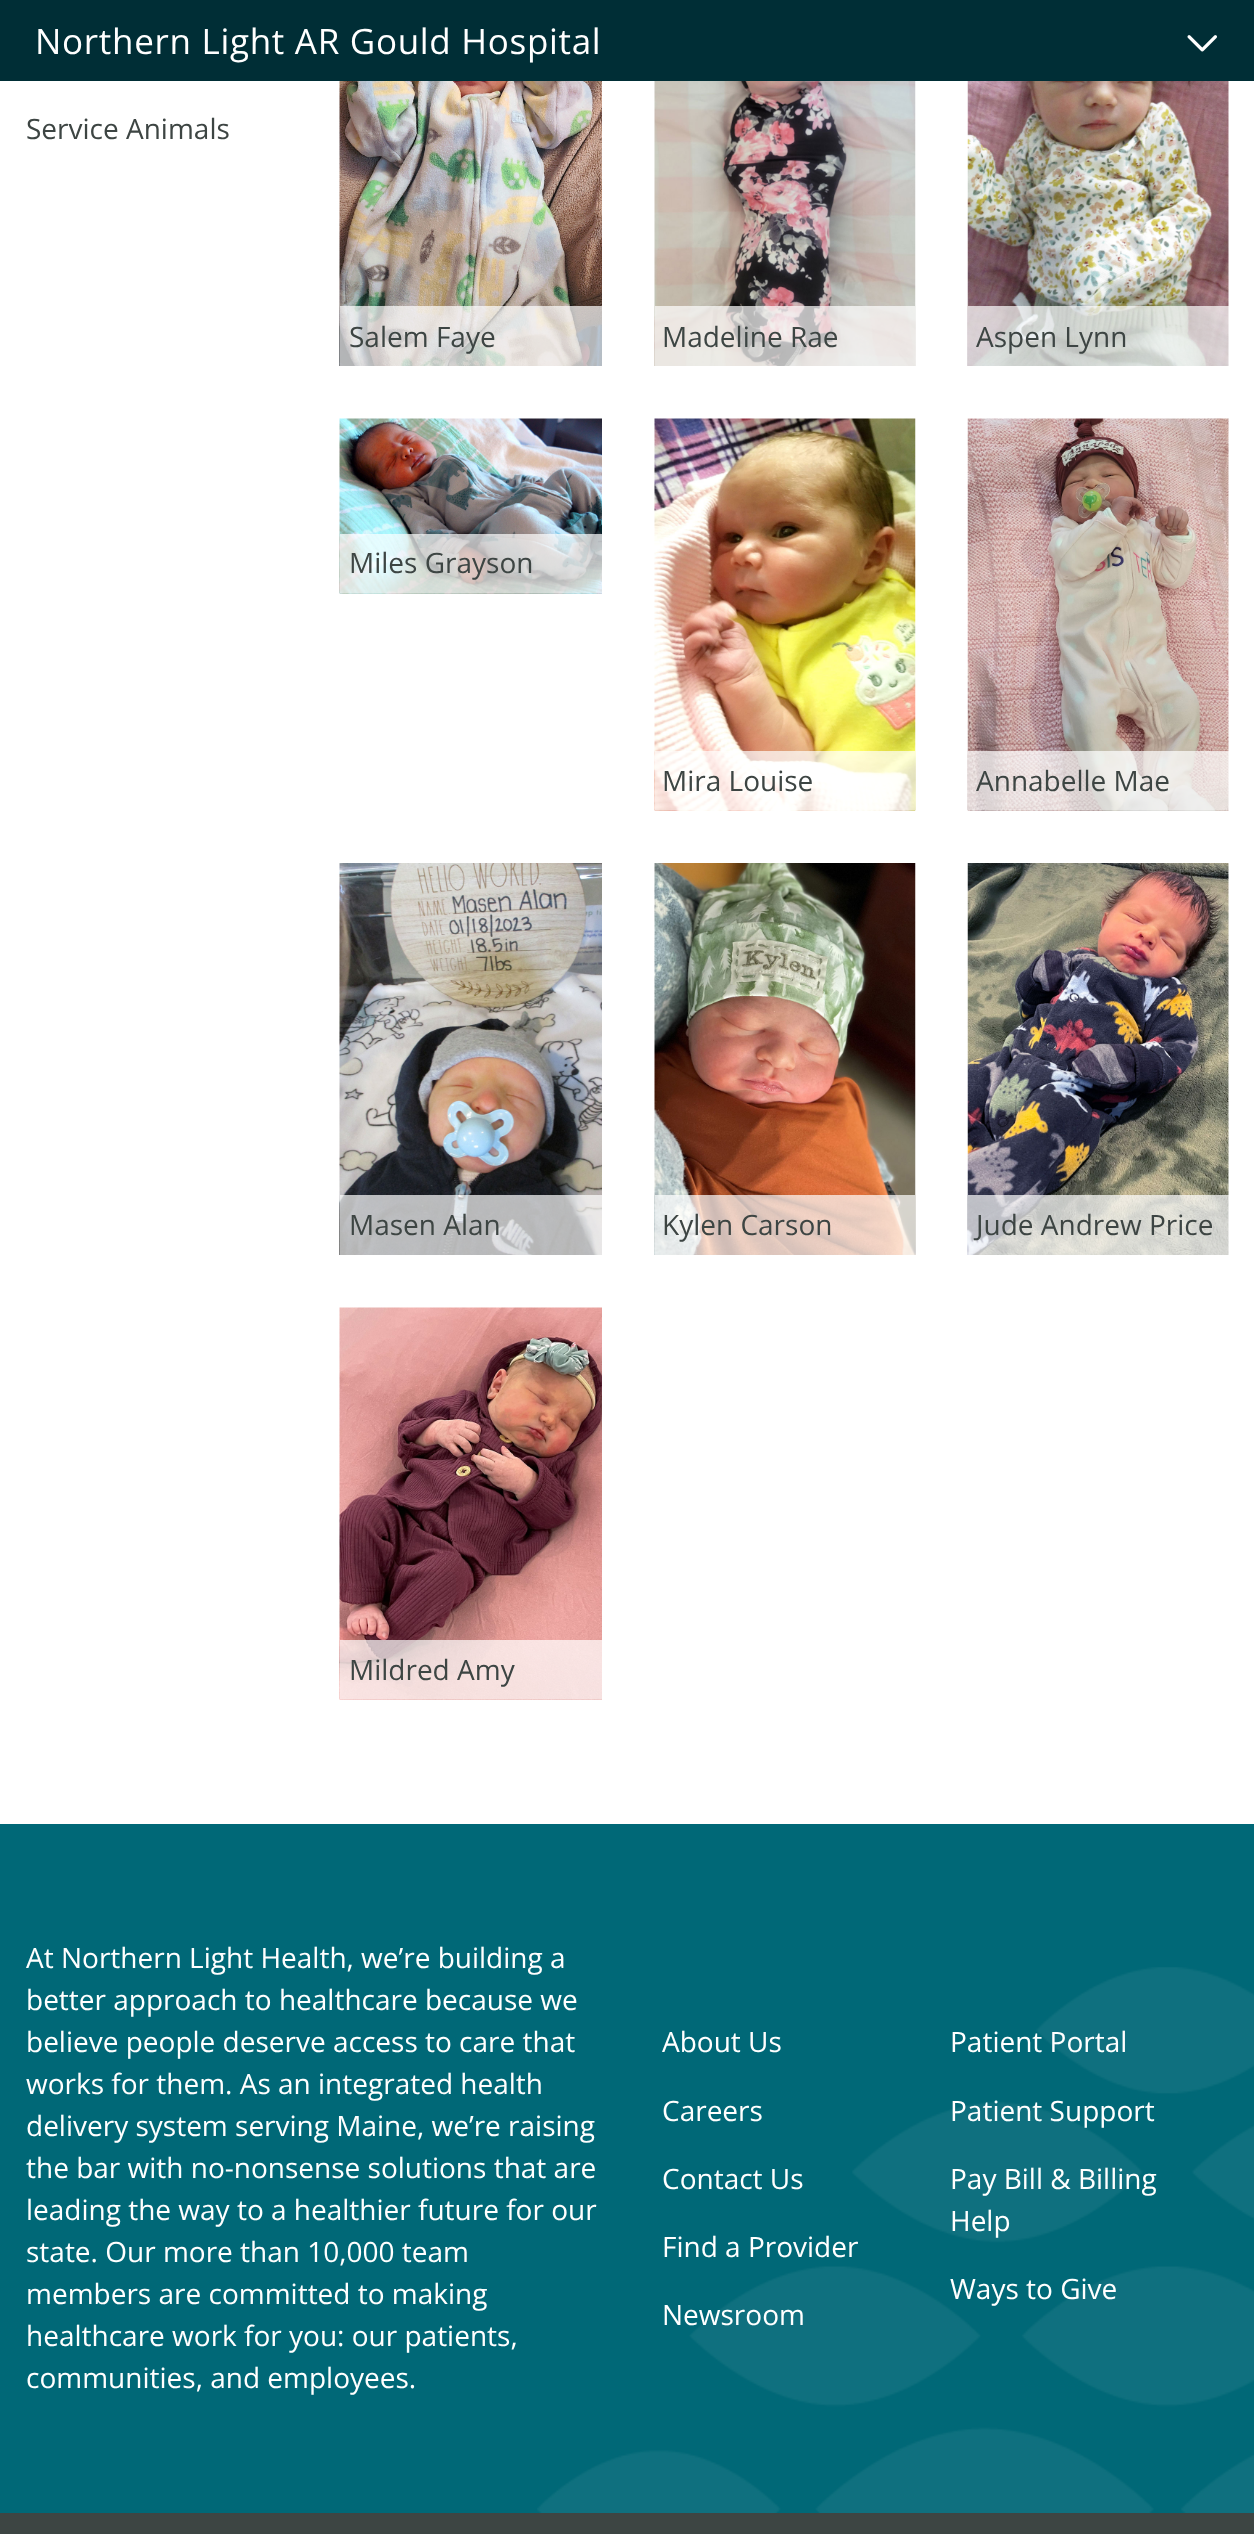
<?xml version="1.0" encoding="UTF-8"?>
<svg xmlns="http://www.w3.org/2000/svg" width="1254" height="2534">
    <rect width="100%" height="100%" fill="#FFFFFF"/>
    <rect x="0" y="0" width="1254" height="81" fill="#002E36"/>
    <text x="35" y="54" font-family="Open Sans" font-size="35" letter-spacing="0.7" fill="#FFFFFF">Northern Light AR Gould Hospital</text>
    <image x="1187" y="35" width="30" height="17" href="img_01.png"/>
    <text x="26" y="139" font-family="Open Sans" font-size="28" fill="#3D4543">Service Animals</text>
    <image x="339" y="81" width="263" height="285" href="img_02.png"/>
    <rect x="340" y="306" width="262" height="60" fill="#FFFFFF" fill-opacity="0.7"/>
    <text x="349" y="347" font-family="Open Sans" font-size="28" fill="#3D4543">Salem Faye</text>
    <image x="654" y="81" width="262" height="285" href="img_03.png"/>
    <rect x="655" y="306" width="260" height="60" fill="#FFFFFF" fill-opacity="0.7"/>
    <text x="662" y="347" font-family="Open Sans" font-size="28" fill="#3D4543">Madeline Rae</text>
    <image x="967" y="81" width="262" height="285" href="img_04.png"/>
    <rect x="968" y="306" width="261" height="60" fill="#FFFFFF" fill-opacity="0.7"/>
    <text x="976" y="347" font-family="Open Sans" font-size="28" fill="#3D4543">Aspen Lynn</text>
    <image x="339" y="418" width="263" height="176" href="img_05.png"/>
    <rect x="340" y="534" width="262" height="59" fill="#FFFFFF" fill-opacity="0.7"/>
    <text x="349" y="573" font-family="Open Sans" font-size="28" fill="#3D4543">Miles Grayson</text>
    <image x="654" y="418" width="262" height="393" href="img_06.png"/>
    <rect x="655" y="751" width="260" height="59" fill="#FFFFFF" fill-opacity="0.7"/>
    <text x="662" y="791" font-family="Open Sans" font-size="28" fill="#3D4543">Mira Louise</text>
    <image x="967" y="418" width="262" height="393" href="img_07.png"/>
    <rect x="968" y="751" width="261" height="59" fill="#FFFFFF" fill-opacity="0.7"/>
    <text x="976" y="791" font-family="Open Sans" font-size="28" fill="#3D4543">Annabelle Mae</text>
    <image x="339" y="863" width="263" height="392" href="img_08.png"/>
    <rect x="340" y="1195" width="262" height="60" fill="#FFFFFF" fill-opacity="0.7"/>
    <text x="349" y="1235" font-family="Open Sans" font-size="28" fill="#3D4543">Masen Alan</text>
    <image x="654" y="863" width="262" height="392" href="img_09.png"/>
    <rect x="655" y="1195" width="260" height="60" fill="#FFFFFF" fill-opacity="0.7"/>
    <text x="662" y="1235" font-family="Open Sans" font-size="28" fill="#3D4543">Kylen Carson</text>
    <image x="967" y="863" width="262" height="392" href="img_10.png"/>
    <rect x="968" y="1195" width="261" height="60" fill="#FFFFFF" fill-opacity="0.7"/>
    <text x="976" y="1235" font-family="Open Sans" font-size="28" fill="#3D4543">Jude Andrew Price</text>
    <image x="339" y="1307" width="263" height="393" href="img_11.png"/>
    <rect x="340" y="1640" width="262" height="59" fill="#FFFFFF" fill-opacity="0.7"/>
    <text x="349" y="1680" font-family="Open Sans" font-size="28" fill="#3D4543">Mildred Amy</text>
    <rect x="0" y="1824" width="1254" height="689" fill="#006877"/>
    <image x="537" y="1967" width="717" height="546" href="img_12.png"/>
    <text font-family="Open Sans" font-size="28" fill="#FFFFFF">
        <tspan x="26" y="1968">At Northern Light Health, we’re building a</tspan>
        <tspan x="26" y="2010">better approach to healthcare because we</tspan>
        <tspan x="26" y="2052">believe people deserve access to care that</tspan>
        <tspan x="26" y="2094">works for them. As an integrated health</tspan>
        <tspan x="26" y="2136">delivery system serving Maine, we’re raising</tspan>
        <tspan x="26" y="2178">the bar with no-nonsense solutions that are</tspan>
        <tspan x="26" y="2220">leading the way to a healthier future for our</tspan>
        <tspan x="26" y="2262">state. Our more than 10,000 team</tspan>
        <tspan x="26" y="2304">members are committed to making</tspan>
        <tspan x="26" y="2346">healthcare work for you: our patients,</tspan>
        <tspan x="26" y="2388">communities, and employees.</tspan>
    </text>
    <text x="662" y="2052" font-family="Open Sans" font-size="28" fill="#FFFFFF">About Us</text>
    <text x="950" y="2052" font-family="Open Sans" font-size="28" fill="#FFFFFF">Patient Portal</text>
    <text x="662" y="2121" font-family="Open Sans" font-size="28" fill="#FFFFFF">Careers</text>
    <text x="950" y="2121" font-family="Open Sans" font-size="28" fill="#FFFFFF">Patient Support</text>
    <text x="662" y="2189" font-family="Open Sans" font-size="28" fill="#FFFFFF">Contact Us</text>
    <text font-family="Open Sans" font-size="28" fill="#FFFFFF">
        <tspan x="950" y="2189">Pay Bill &amp; Billing</tspan>
        <tspan x="950" y="2231">Help</tspan>
    </text>
    <text x="662" y="2257" font-family="Open Sans" font-size="28" fill="#FFFFFF">Find a Provider</text>
    <text x="950" y="2299" font-family="Open Sans" font-size="28" fill="#FFFFFF">Ways to Give</text>
    <text x="662" y="2325" font-family="Open Sans" font-size="28" fill="#FFFFFF">Newsroom</text>
    <rect x="0" y="2513" width="1254" height="21" fill="#3D4543"/>
</svg>
